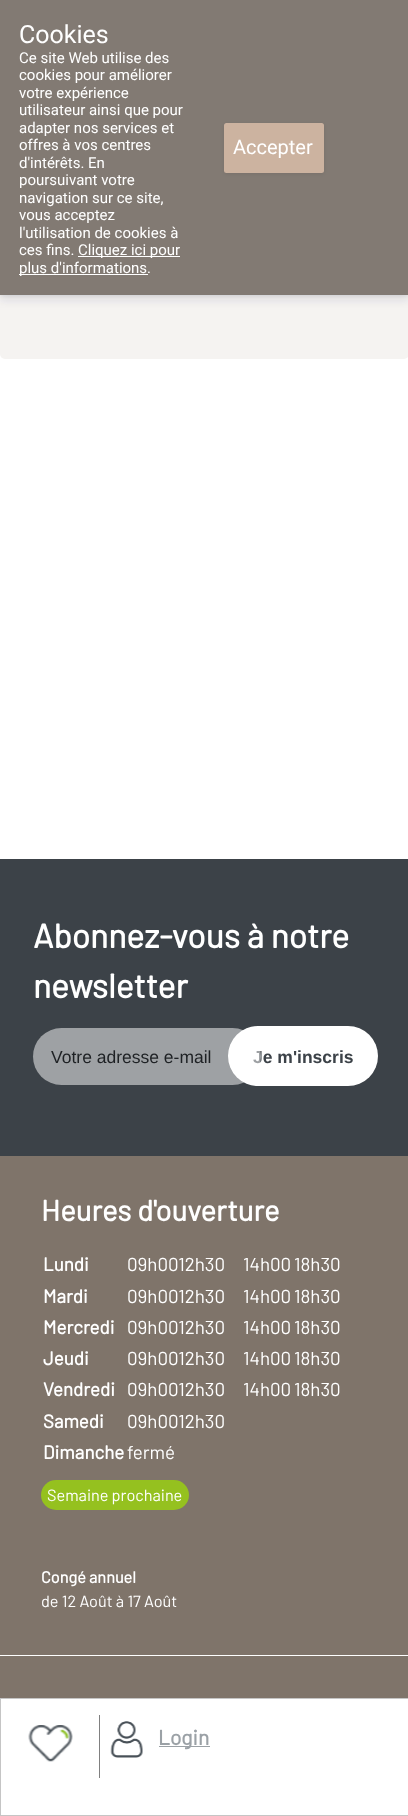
<?xml version="1.0" encoding="UTF-8"?>
<svg xmlns="http://www.w3.org/2000/svg" width="408" height="1816">
    <defs>
        <filter id="blur1" x="-50%" y="-200%" width="200%" height="500%"><feGaussianBlur stdDeviation="2"/></filter>
        <filter id="blur2" x="-50%" y="-200%" width="200%" height="500%"><feGaussianBlur stdDeviation="4"/></filter>
    </defs>
    <rect width="100%" height="100%" fill="#FFFFFF"/>
    <rect x="0" y="-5" width="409" height="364" rx="5" fill="#F5F3F1"/>
    <rect x="0" y="1" width="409" height="295" fill="#000000" fill-opacity="0.08" filter="url(#blur1)"/>
    <rect x="0" y="5" width="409" height="295" fill="#32325D" fill-opacity="0.11" filter="url(#blur2)"/>
    <rect x="0" y="0" width="408" height="295" fill="#827A73"/>
    <text x="19" y="43" font-family="Roboto" font-size="25" fill="#FFFFFF">Cookies</text>
    <text font-family="Roboto" font-size="15" fill="#FFFFFF">
        <tspan x="19" y="63">Ce site Web utilise des</tspan>
        <tspan x="19" y="80">cookies pour améliorer</tspan>
        <tspan x="19" y="98">votre expérience</tspan>
        <tspan x="19" y="115">utilisateur ainsi que pour</tspan>
        <tspan x="19" y="133">adapter nos services et</tspan>
        <tspan x="19" y="150">offres à vos centres</tspan>
        <tspan x="19" y="168">d'intérêts. En</tspan>
        <tspan x="19" y="185">poursuivant votre</tspan>
        <tspan x="19" y="203">navigation sur ce site,</tspan>
        <tspan x="19" y="220">vous acceptez</tspan>
        <tspan x="19" y="238">l'utilisation de cookies à</tspan>
        <tspan x="19" y="255">ces fins.</tspan>
    </text>
    <rect x="78" y="256" width="102" height="1" fill="#FFFFFF"/>
    <text x="78" y="255" font-family="Roboto" font-size="15" fill="#FFFFFF">Cliquez ici pour</text>
    <rect x="19" y="274" width="129" height="1" fill="#FFFFFF"/>
    <text x="19" y="273" font-family="Roboto" font-size="15" fill="#FFFFFF">plus d'informations.</text>
    <rect x="224" y="124" width="100" height="50" rx="2.5" fill="#000000" fill-opacity="0.08" filter="url(#blur1)"/>
    <rect x="224" y="123" width="100" height="50" rx="2.5" fill="#CCB3A0"/>
    <text x="233" y="154" font-family="Roboto" font-size="20" fill="#FFFFFF">Accepter</text>
    <rect x="0" y="859" width="408" height="297" fill="#3C4248"/>
    <text font-family="Barlow" font-size="33.75" font-weight="700" fill="#FFFFFF">
        <tspan x="33" y="948">Abonnez-vous à notre</tspan>
        <tspan x="33" y="998">newsletter</tspan>
    </text>
    <rect x="228" y="1026" width="150" height="60" rx="30" fill="#FFFFFF"/>
    <text x="253" y="1063" font-family="Liberation Sans" font-size="17.5" font-weight="700" fill="#3C4248">Je m'inscris</text>
    <rect x="33" y="1028" width="228" height="57" rx="28.5" fill="#FFFFFF" fill-opacity="0.5"/>
    <text x="51" y="1063" font-family="Liberation Sans" font-size="17.5" fill="#1E2124">Votre adresse e-mail</text>
    <rect x="0" y="1156" width="408" height="542" fill="#7F746A"/>
    <text x="41" y="1221" font-family="Barlow" font-size="29.25" font-weight="700" fill="#FFFFFF">Heures d'ouverture</text>
    <text x="43" y="1271" font-family="Barlow" font-size="18.75" font-weight="700" fill="#FFFFFF">Lundi</text>
    <text x="127" y="1271" font-family="Barlow" font-size="18.75" fill="#FFFFFF">09h0012h30</text>
    <text x="243" y="1271" font-family="Barlow" font-size="18.75" fill="#FFFFFF">14h00</text>
    <text x="294" y="1271" font-family="Barlow" font-size="18.75" fill="#FFFFFF">18h30</text>
    <text x="43" y="1303" font-family="Barlow" font-size="18.75" font-weight="700" fill="#FFFFFF">Mardi</text>
    <text x="127" y="1303" font-family="Barlow" font-size="18.75" fill="#FFFFFF">09h0012h30</text>
    <text x="243" y="1303" font-family="Barlow" font-size="18.75" fill="#FFFFFF">14h00</text>
    <text x="294" y="1303" font-family="Barlow" font-size="18.75" fill="#FFFFFF">18h30</text>
    <text x="43" y="1334" font-family="Barlow" font-size="18.75" font-weight="700" fill="#FFFFFF">Mercredi</text>
    <text x="127" y="1334" font-family="Barlow" font-size="18.75" fill="#FFFFFF">09h0012h30</text>
    <text x="243" y="1334" font-family="Barlow" font-size="18.75" fill="#FFFFFF">14h00</text>
    <text x="294" y="1334" font-family="Barlow" font-size="18.75" fill="#FFFFFF">18h30</text>
    <text x="43" y="1365" font-family="Barlow" font-size="18.75" font-weight="700" fill="#FFFFFF">Jeudi</text>
    <text x="127" y="1365" font-family="Barlow" font-size="18.75" fill="#FFFFFF">09h0012h30</text>
    <text x="243" y="1365" font-family="Barlow" font-size="18.75" fill="#FFFFFF">14h00</text>
    <text x="294" y="1365" font-family="Barlow" font-size="18.75" fill="#FFFFFF">18h30</text>
    <text x="43" y="1396" font-family="Barlow" font-size="18.75" font-weight="700" fill="#FFFFFF">Vendredi</text>
    <text x="127" y="1396" font-family="Barlow" font-size="18.75" fill="#FFFFFF">09h0012h30</text>
    <text x="243" y="1396" font-family="Barlow" font-size="18.75" fill="#FFFFFF">14h00</text>
    <text x="294" y="1396" font-family="Barlow" font-size="18.75" fill="#FFFFFF">18h30</text>
    <text x="43" y="1428" font-family="Barlow" font-size="18.75" font-weight="700" fill="#FFFFFF">Samedi</text>
    <text x="127" y="1428" font-family="Barlow" font-size="18.75" fill="#FFFFFF">09h0012h30</text>
    <text x="43" y="1459" font-family="Barlow" font-size="18.75" font-weight="700" fill="#FFFFFF">Dimanche</text>
    <text x="127" y="1459" font-family="Barlow" font-size="18.75" fill="#FFFFFF">fermé</text>
    <rect x="41" y="1480" width="148" height="30" rx="15" fill="#95C11F"/>
    <text x="47" y="1501" font-family="Barlow" font-size="16.25" fill="#FFFFFF">Semaine prochaine</text>
    <text x="41" y="1583" font-family="Barlow" font-size="16.25" font-weight="700" fill="#FFFFFF">Congé annuel</text>
    <text x="41" y="1607" font-family="Barlow" font-size="16.25" fill="#FFFFFF">de 12 Août à 17 Août</text>
    <rect x="0" y="1655" width="408" height="1" fill="#FFFFFF"/>
    <rect x="0.5" y="1698.5" width="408" height="117" fill="none" stroke="#C5C5C5"/>
    <image x="28" y="1725" width="45" height="37" href="img_01.png"/>
    <rect x="99" y="1715" width="1" height="63" fill="#808080"/>
    <image x="110" y="1721" width="33" height="37" href="img_02.png"/>
    <rect x="159" y="1746" width="51" height="1" fill="#9BA1A6"/>
    <text x="158" y="1745" font-family="Barlow" font-size="21" font-weight="700" fill="#9BA1A6">Login</text>
</svg>
